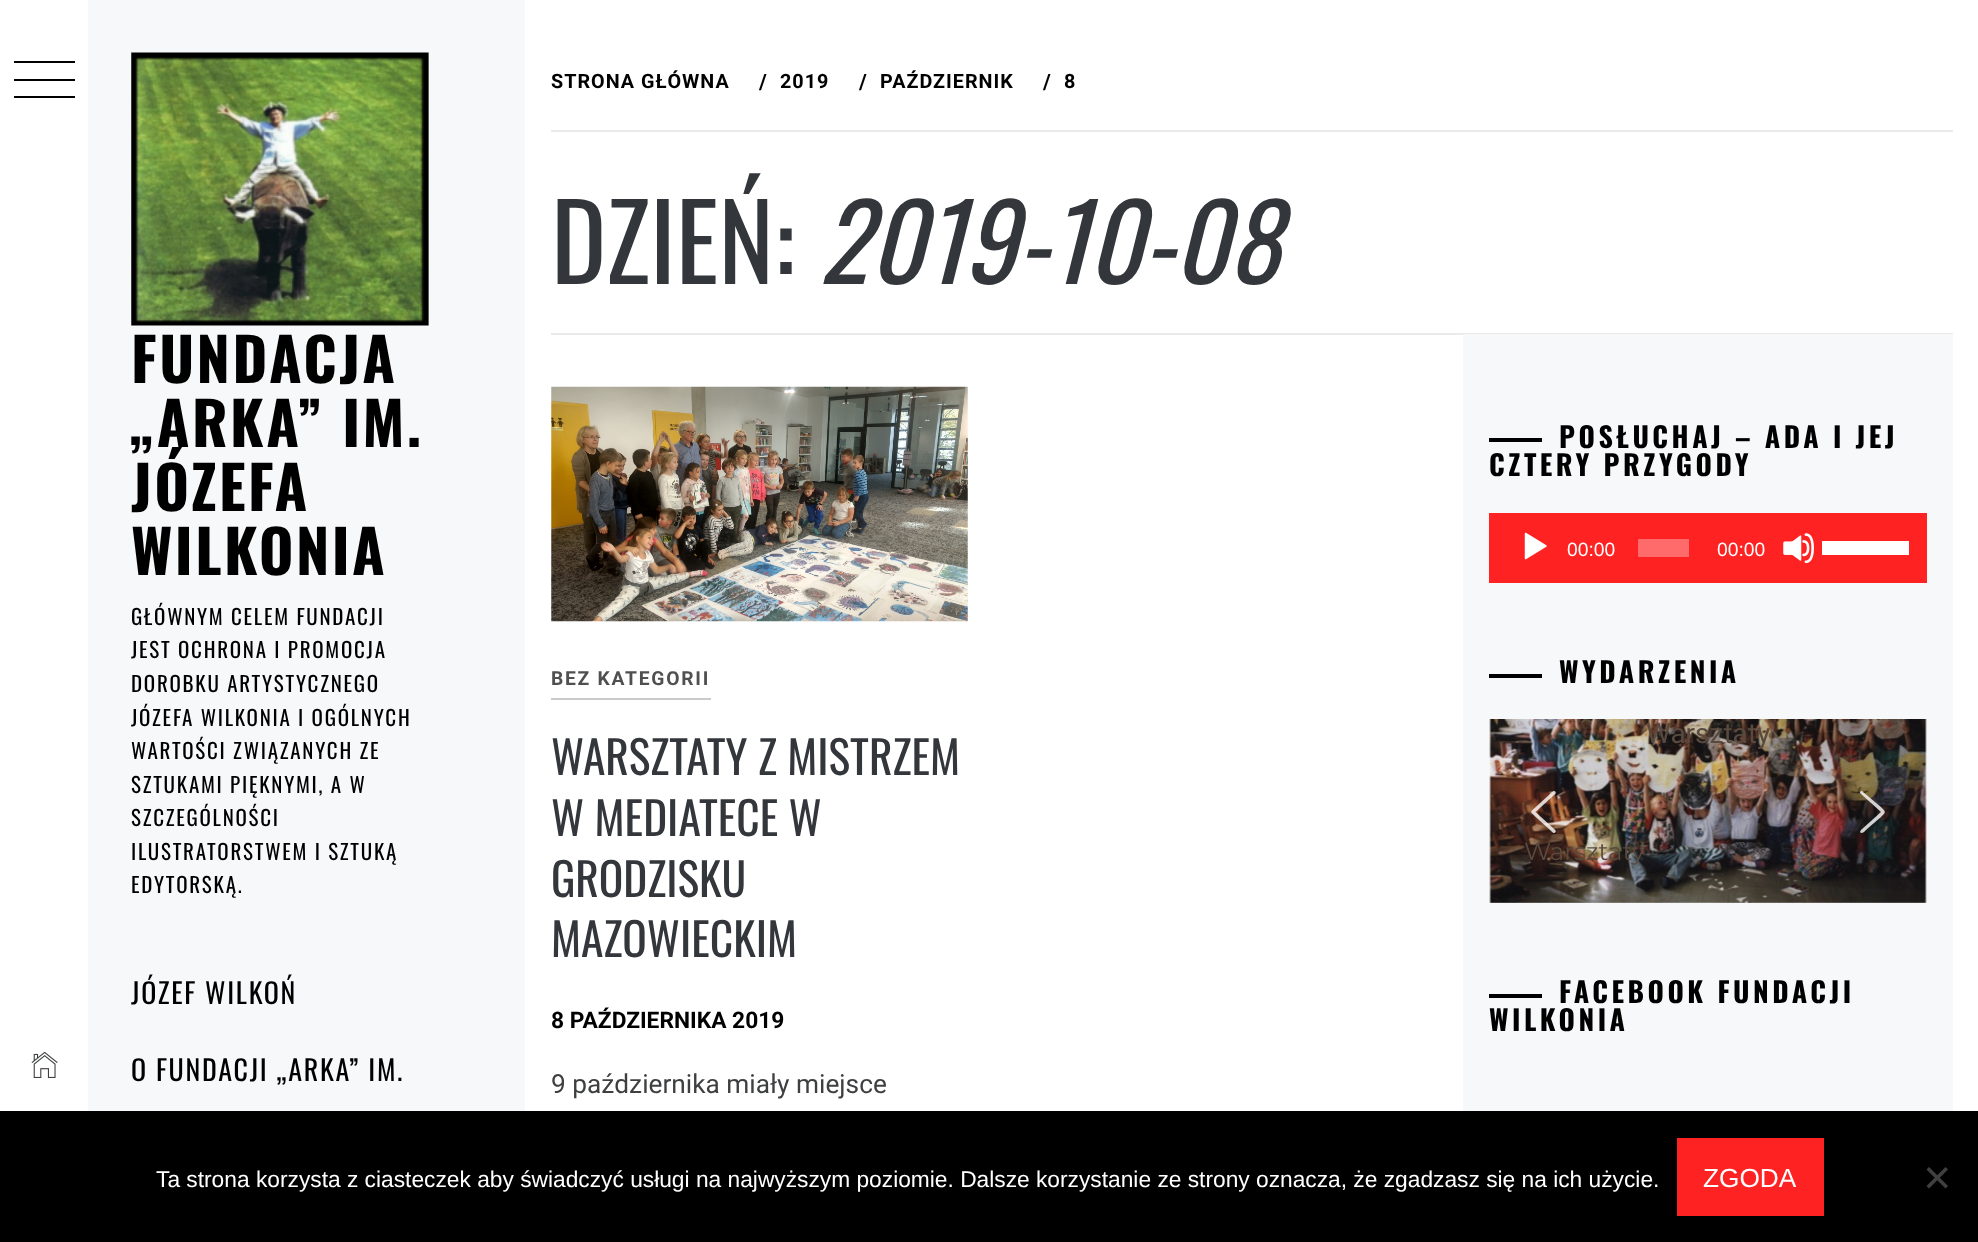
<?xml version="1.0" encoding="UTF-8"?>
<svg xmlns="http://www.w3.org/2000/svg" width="1978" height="1242">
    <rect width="100%" height="100%" fill="#FFFFFF"/>
    <rect x="14" y="61" width="61" height="2" fill="#000000"/>
    <rect x="14" y="79" width="61" height="2" fill="#000000"/>
    <rect x="14" y="96" width="61" height="2" fill="#000000"/>
    <image x="31" y="1051" width="27" height="27" href="img_01.png"/>
    <rect x="88" y="0" width="437" height="1111" fill="#F6F8F9"/>
    <image x="131" y="52" width="298" height="274" href="img_02.png"/>
    <text font-family="Oswald" font-size="59.5" font-weight="700" letter-spacing="2.4" fill="#000000">
        <tspan x="131" y="383">FUNDACJA</tspan>
        <tspan x="131" y="447">„ARKA” IM.</tspan>
        <tspan x="131" y="511">JÓZEFA</tspan>
        <tspan x="131" y="575">WILKONIA</tspan>
    </text>
    <text font-family="Oswald" font-size="21" letter-spacing="1.75" fill="#000000">
        <tspan x="131" y="625">GŁÓWNYM CELEM FUNDACJI</tspan>
        <tspan x="131" y="658">JEST OCHRONA I PROMOCJA</tspan>
        <tspan x="131" y="692">DOROBKU ARTYSTYCZNEGO</tspan>
        <tspan x="131" y="726">JÓZEFA WILKONIA I OGÓLNYCH</tspan>
        <tspan x="131" y="759">WARTOŚCI ZWIĄZANYCH ZE</tspan>
        <tspan x="131" y="793">SZTUKAMI PIĘKNYMI, A W</tspan>
        <tspan x="131" y="826">SZCZEGÓLNOŚCI</tspan>
        <tspan x="131" y="860">ILUSTRATORSTWEM I SZTUKĄ</tspan>
        <tspan x="131" y="893">EDYTORSKĄ.</tspan>
    </text>
    <text x="131" y="1004" font-family="Oswald" font-size="28" letter-spacing="1.7" fill="#000000">JÓZEF WILKOŃ</text>
    <text x="131" y="1081" font-family="Oswald" font-size="28" letter-spacing="1.7" fill="#000000">O FUNDACJI „ARKA” IM.</text>
    <rect x="551" y="333" width="1402" height="2" fill="#EAEAEA"/>
    <rect x="551" y="130" width="1402" height="2" fill="#EAEAEA"/>
    <text x="551" y="88" font-family="Roboto" font-size="19.75" font-weight="700" letter-spacing="1" fill="#000000">STRONA GŁÓWNA</text>
    <text x="759" y="89" font-family="Roboto" font-size="21" font-weight="700" letter-spacing="1" fill="#000000">/</text>
    <text x="780" y="88" font-family="Roboto" font-size="19.75" font-weight="700" letter-spacing="1" fill="#000000">2019</text>
    <text x="859" y="89" font-family="Roboto" font-size="21" font-weight="700" letter-spacing="1" fill="#000000">/</text>
    <text x="880" y="88" font-family="Roboto" font-size="19.75" font-weight="700" letter-spacing="1" fill="#000000">PAŹDZIERNIK</text>
    <text x="1043" y="89" font-family="Roboto" font-size="21" font-weight="700" letter-spacing="1" fill="#000000">/</text>
    <text x="1064" y="88" font-family="Roboto" font-size="19.75" font-weight="700" letter-spacing="1" fill="#000000">8</text>
    <text x="551" y="284" font-family="Oswald" font-size="105" fill="#33363B">DZIEŃ:</text>
    <text x="819" y="284" font-family="Oswald" font-size="105" font-style="italic" fill="#33363B">2019-10-08</text>
    <image x="551" y="386" width="417" height="236" href="img_03.png"/>
    <rect x="551" y="698" width="160" height="2" fill="#CACACA"/>
    <text x="551" y="685" font-family="Roboto" font-size="19.25" font-weight="700" letter-spacing="1.75" fill="#505050">BEZ KATEGORII</text>
    <text font-family="Oswald" font-size="45.5" fill="#33363B">
        <tspan x="551" y="775">WARSZTATY Z MISTRZEM</tspan>
        <tspan x="551" y="836">W MEDIATECE W</tspan>
        <tspan x="551" y="897">GRODZISKU</tspan>
        <tspan x="551" y="957">MAZOWIECKIM</tspan>
    </text>
    <text x="551" y="1028" font-family="Roboto" font-size="22.75" font-weight="700" fill="#000000">8 PAŹDZIERNIKA 2019</text>
    <text x="551" y="1093" font-family="Roboto" font-size="26.25" fill="#3E3F40">9 października miały miejsce</text>
    <rect x="1463" y="334" width="490" height="777" fill="#F6F8F9"/>
    <rect x="1489" y="438" width="53" height="4" fill="#000000"/>
    <text x="1559" y="448" font-family="Oswald" font-size="28" font-weight="700" letter-spacing="3.5" fill="#000000">POSŁUCHAJ – ADA I JEJ</text>
    <text x="1489" y="476" font-family="Oswald" font-size="28" font-weight="700" letter-spacing="3.5" fill="#000000">CZTERY PRZYGODY</text>
    <rect x="1489" y="513" width="438" height="70" fill="#FF2222"/>
    <image x="1524" y="532" width="23" height="28" href="img_04.png"/>
    <text x="1567" y="556" font-family="Liberation Sans" font-size="19.25" fill="#FFFFFF">00:00</text>
    <rect x="1638" y="539" width="51" height="18" fill="#FF6B6B"/>
    <text x="1717" y="556" font-family="Liberation Sans" font-size="19.25" fill="#FFFFFF">00:00</text>
    <image x="1783" y="533" width="31" height="30" href="img_05.png"/>
    <rect x="1822" y="541" width="87" height="14" fill="#FFFFFF"/>
    <rect x="1489" y="674" width="53" height="4" fill="#000000"/>
    <text x="1559" y="683" font-family="Oswald" font-size="28" font-weight="700" letter-spacing="3.5" fill="#000000">WYDARZENIA</text>
    <image x="1489" y="719" width="438" height="184" href="img_06.png"/>
    <text x="1646" y="743" font-family="Roboto" font-size="28" fill="#594A3F">Warsztaty</text>
    <image x="1531" y="791" width="25" height="42" href="img_07.png"/>
    <path d="M 1863 792 C 1862 790 1860 791 1860 793 L 1881 812 L 1861 830 L 1860 832 C 1862 835 1866 830 1867 829 L 1881 817 C 1886 812 1886 812 1881 807 Z" fill="#FFFFFF" fill-opacity="0.8" fill-rule="evenodd"/>
    <text x="1524" y="860" font-family="Montserrat" font-size="24.5" fill="#594A3F">Warsztaty</text>
    <rect x="1489" y="994" width="53" height="4" fill="#000000"/>
    <text x="1559" y="1003" font-family="Oswald" font-size="28" font-weight="700" letter-spacing="3.5" fill="#000000">FACEBOOK FUNDACJI</text>
    <text x="1489" y="1031" font-family="Oswald" font-size="28" font-weight="700" letter-spacing="3.5" fill="#000000">WILKONIA</text>
    <rect x="0" y="1111" width="1978" height="131" fill="#000000"/>
    <text x="156" y="1187" font-family="Liberation Sans" font-size="22.75" fill="#FFFFFF">Ta strona korzysta z ciasteczek aby świadczyć usługi na najwyższym poziomie. Dalsze korzystanie ze strony oznacza, że zgadzasz się na ich użycie.</text>
    <rect x="1677" y="1138" width="147" height="78" fill="#FF2222"/>
    <text x="1703" y="1187" font-family="Liberation Sans" font-size="26.25" fill="#FFFFFF">ZGODA</text>
    <path d="M 1945.5 1167 L 1948 1169.5 L 1929 1188.5 L 1926.5 1186 Z" fill="#404040"/>
    <path d="M 1926.5 1169.5 L 1929 1167 L 1948 1186 L 1945.5 1188.5 Z" fill="#404040"/>
</svg>
